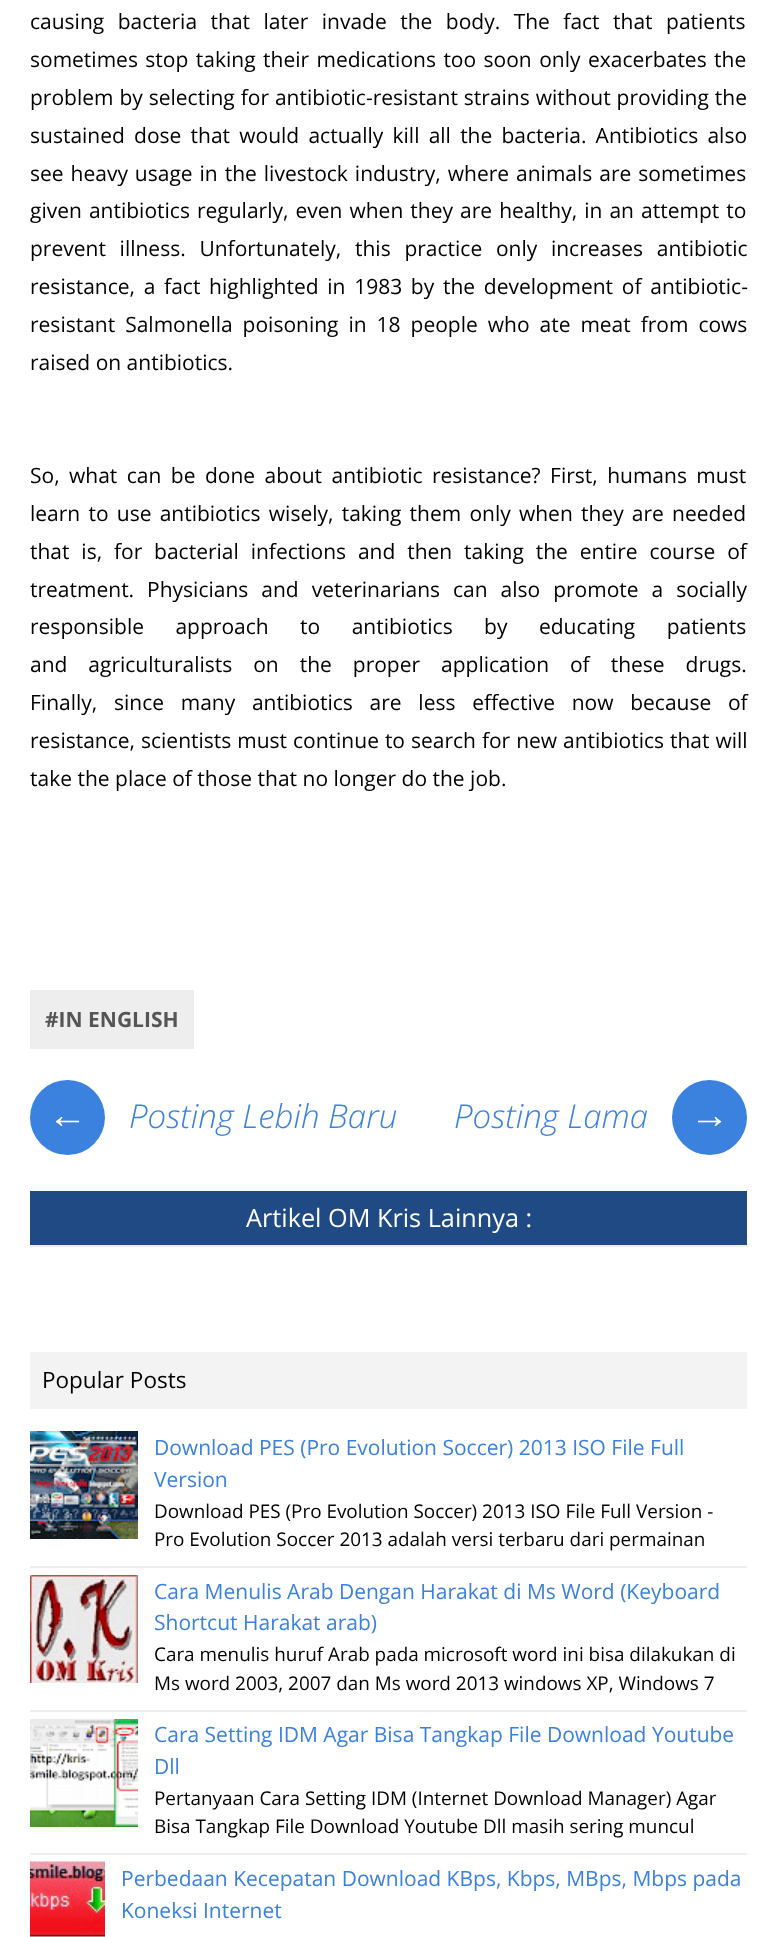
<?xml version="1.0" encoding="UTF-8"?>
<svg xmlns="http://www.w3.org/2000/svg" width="776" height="1937">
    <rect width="100%" height="100%" fill="#FFFFFF"/>
    <text font-family="Open Sans" font-size="21" fill="#000000">
        <tspan x="30" y="29" word-spacing="8">causing bacteria that later invade the body. The fact that patients</tspan>
        <tspan x="30" y="67" word-spacing="2">sometimes stop taking their medications too soon only exacerbates the</tspan>
        <tspan x="30" y="105" word-spacing="0.5">problem by selecting for antibiotic-resistant strains without providing the</tspan>
        <tspan x="30" y="143" word-spacing="3.75">sustained dose that would actually kill all the bacteria. Antibiotics also</tspan>
        <tspan x="30" y="181" word-spacing="1.5">see heavy usage in the livestock industry, where animals are sometimes</tspan>
        <tspan x="30" y="218" word-spacing="1.6">given antibiotics regularly, even when they are healthy, in an attempt to</tspan>
        <tspan x="30" y="256" word-spacing="8.25">prevent illness. Unfortunately, this practice only increases antibiotic</tspan>
        <tspan x="30" y="294" word-spacing="3.25">resistance, a fact highlighted in 1983 by the development of antibiotic-</tspan>
        <tspan x="30" y="332" word-spacing="4.5">resistant Salmonella poisoning in 18 people who ate meat from cows</tspan>
        <tspan x="30" y="370">raised on antibiotics.</tspan>
    </text>
    <text font-family="Open Sans" font-size="21" fill="#000000">
        <tspan x="30" y="483" word-spacing="4">So, what can be done about antibiotic resistance? First, humans must</tspan>
        <tspan x="30" y="521" word-spacing="2.75">learn to use antibiotics wisely, taking them only when they are needed</tspan>
        <tspan x="30" y="559" word-spacing="6.4">that is, for bacterial infections and then taking the entire course of</tspan>
        <tspan x="30" y="597" word-spacing="7.5">treatment. Physicians and veterinarians can also promote a socially</tspan>
        <tspan x="30" y="634" word-spacing="26">responsible approach to antibiotics by educating patients</tspan>
        <tspan x="30" y="672" word-spacing="15.5">and agriculturalists on the proper application of these drugs.</tspan>
        <tspan x="30" y="710" word-spacing="11.25">Finally, since many antibiotics are less effective now because of</tspan>
        <tspan x="30" y="748" word-spacing="0.5">resistance, scientists must continue to search for new antibiotics that will</tspan>
        <tspan x="30" y="786">take the place of those that no longer do the job.</tspan>
    </text>
    <rect x="30" y="990" width="164" height="59" fill="#EEEEEE"/>
    <text x="45" y="1027" font-family="Open Sans" font-size="21" font-weight="700" fill="#555555">#IN ENGLISH</text>
    <circle cx="67.5" cy="1117.5" r="37.5" fill="#3B81DE"/>
    <text x="48" y="1128" font-family="Liberation Sans" font-size="39" font-style="italic" fill="#FFFFFF">←</text>
    <text x="129" y="1128" font-family="Open Sans" font-size="33" font-weight="300" font-style="italic" fill="#3B81DE">Posting Lebih Baru</text>
    <text x="454" y="1128" font-family="Open Sans" font-size="33" font-weight="300" font-style="italic" fill="#3B81DE">Posting Lama</text>
    <circle cx="709.5" cy="1117.5" r="37.5" fill="#3B81DE"/>
    <text x="690" y="1128" font-family="Liberation Sans" font-size="39" font-style="italic" fill="#FFFFFF">→</text>
    <rect x="30" y="1245" width="717" height="2" fill="#EEEEEE"/>
    <rect x="30" y="1191" width="717" height="54" fill="#204A84"/>
    <text x="246" y="1227" font-family="Open Sans" font-size="25.25" fill="#FFFFFF">Artikel OM Kris Lainnya :</text>
    <rect x="30" y="1352" width="717" height="57" fill="#F3F3F3"/>
    <text x="42" y="1388" font-family="Open Sans" font-size="22.5" fill="#000000">Popular Posts</text>
    <rect x="30" y="1566" width="717" height="2" fill="#EEEEEE"/>
    <image x="30" y="1431" width="108" height="108" href="img_01.png"/>
    <text font-family="Open Sans" font-size="21" fill="#3B81DE">
        <tspan x="154" y="1455">Download PES (Pro Evolution Soccer) 2013 ISO File Full</tspan>
        <tspan x="154" y="1487">Version</tspan>
    </text>
    <text font-family="Open Sans" font-size="18.9" fill="#000000">
        <tspan x="154" y="1518">Download PES (Pro Evolution Soccer) 2013 ISO File Full Version -</tspan>
        <tspan x="154" y="1546">Pro Evolution Soccer 2013 adalah versi terbaru dari permainan</tspan>
    </text>
    <rect x="30" y="1710" width="717" height="2" fill="#EEEEEE"/>
    <image x="30" y="1575" width="108" height="108" href="img_02.png"/>
    <text font-family="Open Sans" font-size="21" fill="#3B81DE">
        <tspan x="154" y="1599">Cara Menulis Arab Dengan Harakat di Ms Word (Keyboard</tspan>
        <tspan x="154" y="1630">Shortcut Harakat arab)</tspan>
    </text>
    <text font-family="Open Sans" font-size="18.9" fill="#000000">
        <tspan x="154" y="1661">Cara menulis huruf Arab pada microsoft word ini bisa dilakukan di</tspan>
        <tspan x="154" y="1690">Ms word 2003, 2007 dan Ms word 2013 windows XP, Windows 7</tspan>
    </text>
    <rect x="30" y="1853" width="717" height="2" fill="#EEEEEE"/>
    <image x="30" y="1719" width="108" height="108" href="img_03.png"/>
    <text font-family="Open Sans" font-size="21" fill="#3B81DE">
        <tspan x="154" y="1742">Cara Setting IDM Agar Bisa Tangkap File Download Youtube</tspan>
        <tspan x="154" y="1774">Dll</tspan>
    </text>
    <text font-family="Open Sans" font-size="18.9" fill="#000000">
        <tspan x="154" y="1805">Pertanyaan Cara Setting IDM (Internet Download Manager) Agar</tspan>
        <tspan x="154" y="1833">Bisa Tangkap File Download Youtube Dll masih sering muncul</tspan>
    </text>
    <image x="30" y="1861" width="75" height="76" href="img_04.png"/>
    <text font-family="Open Sans" font-size="21" fill="#3B81DE">
        <tspan x="121" y="1886">Perbedaan Kecepatan Download KBps, Kbps, MBps, Mbps pada</tspan>
        <tspan x="121" y="1918">Koneksi Internet</tspan>
    </text>
</svg>
